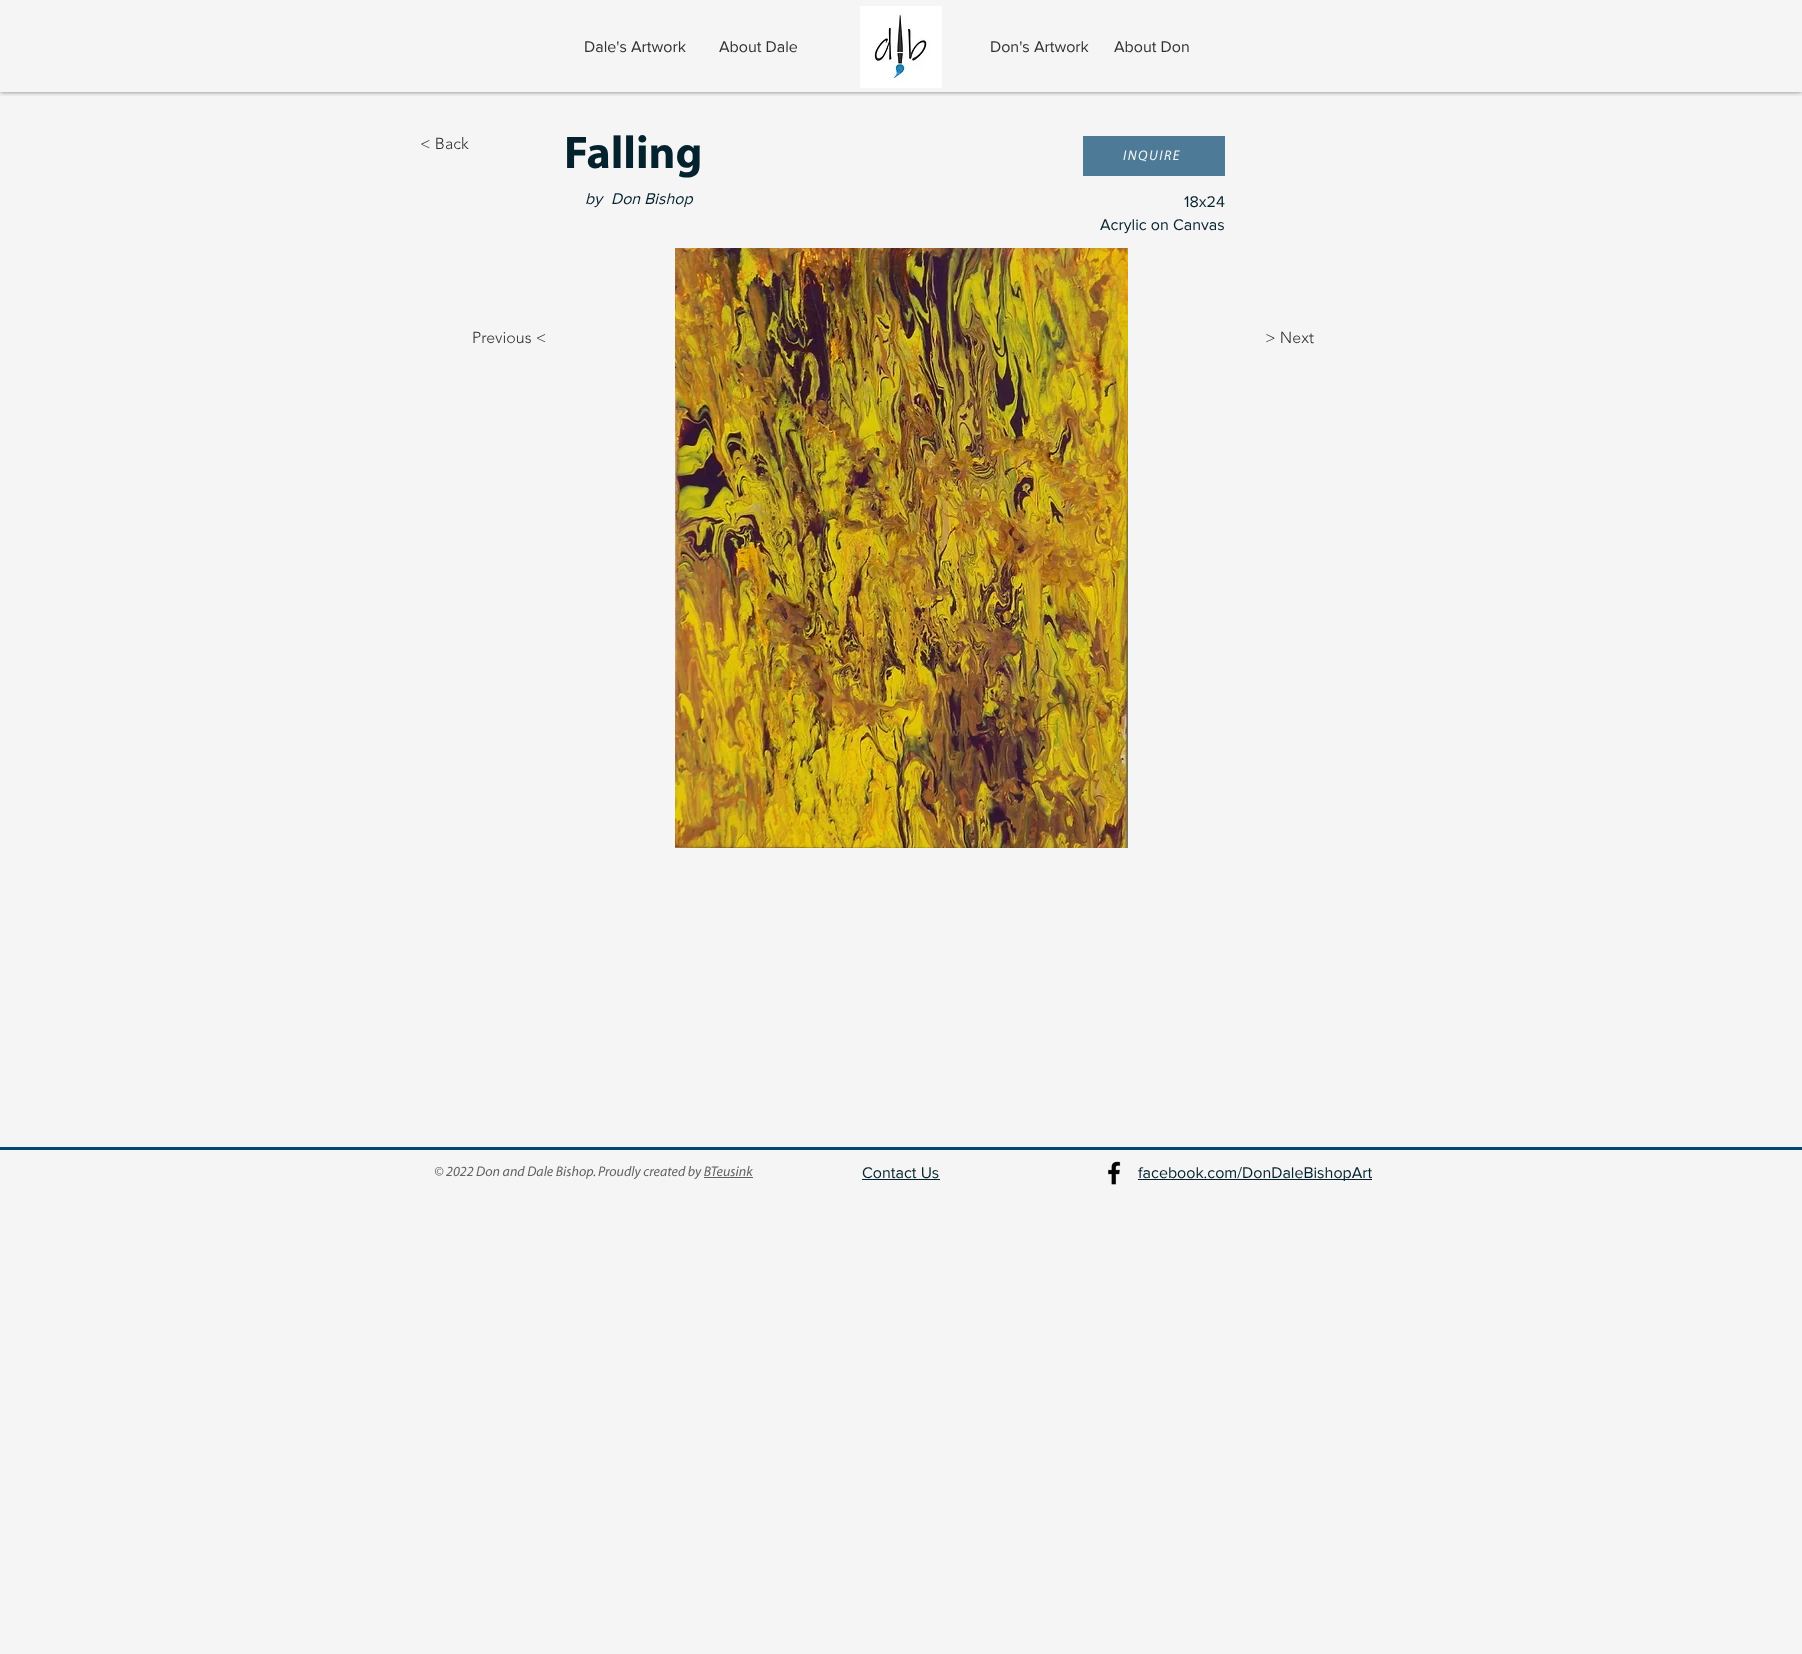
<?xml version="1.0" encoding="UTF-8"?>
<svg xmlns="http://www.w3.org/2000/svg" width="1802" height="1654">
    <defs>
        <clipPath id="clip1"><rect x="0" y="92" width="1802" height="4"/></clipPath>
        <filter id="blur1" x="-50%" y="-200%" width="200%" height="500%"><feGaussianBlur stdDeviation="2.5"/></filter>
    </defs>
    <rect width="100%" height="100%" fill="#F5F5F5"/>
    <g clip-path="url(#clip1)">
        <rect x="0" y="0" width="1802" height="92" fill="#000000" fill-opacity="0.5" filter="url(#blur1)"/>
    </g>
    <text x="584" y="52" font-family="'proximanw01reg'" font-size="16" fill="#313131">Dale's Artwork</text>
    <text x="719" y="52" font-family="'proximanw01reg'" font-size="16" fill="#313131">About Dale</text>
    <image x="860" y="6" width="82" height="82" href="img_01.png"/>
    <text x="990" y="52" font-family="'proximanw01reg'" font-size="16" fill="#313131">Don's Artwork</text>
    <text x="1114" y="52" font-family="'proximanw01reg'" font-size="16" fill="#313131">About Don</text>
    <text x="420" y="149" font-family="'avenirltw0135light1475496'" font-size="16" font-weight="300" fill="#313131">&lt; Back</text>
    <text x="564" y="168" font-family="Myriad" font-size="46" font-weight="700" fill="#04222E">Falling</text>
    <rect x="1083" y="136" width="142" height="40" fill="#4D7A96"/>
    <text x="1123" y="160" font-family="Myriad" font-size="14" font-style="italic" letter-spacing="1.5" fill="#F5F5F5">INQUIRE</text>
    <text x="585" y="204" font-family="'proximanw01reg'" font-size="16" font-style="italic" fill="#04222E">by</text>
    <text x="611" y="204" font-family="'proximanw01reg'" font-size="16" font-style="italic" fill="#04222E">Don Bishop</text>
    <text x="1184" y="207" font-family="'proximanw01reg'" font-size="16" fill="#04222E">18x24</text>
    <text x="1100" y="230" font-family="'proximanw01reg'" font-size="16" fill="#04222E">Acrylic on Canvas</text>
    <text x="472" y="343" font-family="'avenirltw0135light1475496'" font-size="16" font-weight="300" fill="#313131">Previous &lt;</text>
    <image x="675" y="248" width="453" height="600" href="img_02.png"/>
    <text x="1265" y="343" font-family="'avenirltw0135light1475496'" font-size="16" font-weight="300" fill="#313131">&gt; Next</text>
    <rect x="0" y="1147" width="1802" height="3" fill="#034873"/>
    <text x="434" y="1176" font-family="Myriad" font-size="14" font-style="italic" fill="#626262">© 2022 Don and Dale Bishop. Proudly created by BTeusink</text>
    <rect x="704" y="1177" width="49" height="1" fill="#626262"/>
    <text x="862" y="1178" font-family="'proximanw01reg'" font-size="16" fill="#04222E">Contact Us</text>
    <rect x="862" y="1179" width="78" height="1" fill="#04222E"/>
    <image x="1108" y="1161" width="13" height="24" href="img_03.png"/>
    <rect x="1138" y="1179" width="234" height="1" fill="#04222E"/>
    <text x="1138" y="1178" font-family="'proximanw01reg'" font-size="16" fill="#04222E">facebook.com/DonDaleBishopArt</text>
</svg>
